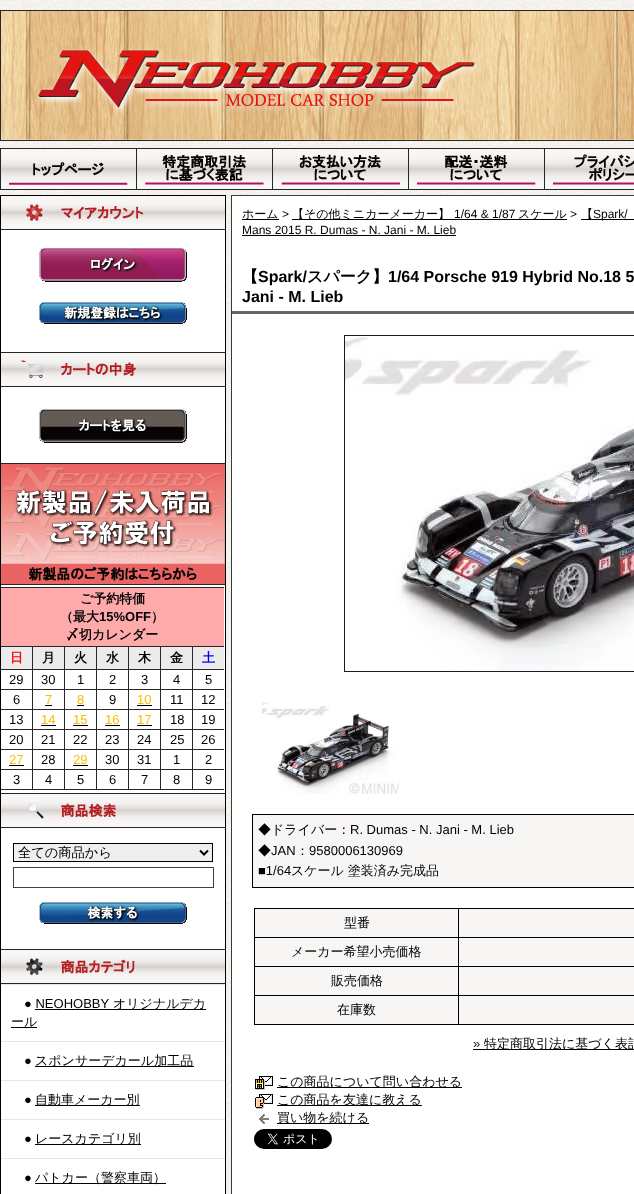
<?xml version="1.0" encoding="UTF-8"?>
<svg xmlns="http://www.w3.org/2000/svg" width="634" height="1194">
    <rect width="100%" height="100%" fill="#FFFFFF"/>
    <image x="0" y="0" width="634" height="1194" href="img_01.png"/>
    <image x="1" y="11" width="633" height="129" href="img_02.png"/>
    <rect x="0.5" y="10.5" width="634" height="130" fill="none" stroke="#272727"/>
    <image x="36" y="47" width="444" height="67" href="img_03.png"/>
    <rect x="0" y="148" width="634" height="1" fill="#272727"/>
    <rect x="0" y="189" width="634" height="1" fill="#272727"/>
    <rect x="0" y="148" width="1" height="42" fill="#272727"/>
    <image x="1" y="149" width="135" height="40" href="img_04.png"/>
    <rect x="136" y="148" width="1" height="42" fill="#272727"/>
    <image x="137" y="149" width="135" height="40" href="img_05.png"/>
    <rect x="272" y="148" width="1" height="42" fill="#272727"/>
    <image x="273" y="149" width="135" height="40" href="img_06.png"/>
    <rect x="408" y="148" width="1" height="42" fill="#272727"/>
    <image x="409" y="149" width="135" height="40" href="img_07.png"/>
    <rect x="544" y="148" width="1" height="42" fill="#272727"/>
    <image x="545" y="149" width="89" height="40" href="img_08.png"/>
    <rect x="1" y="230" width="224" height="964" fill="#FFFFFF"/>
    <rect x="0.5" y="195.5" width="225" height="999" fill="none" stroke="#000000"/>
    <rect x="1" y="229" width="224" height="1" fill="#272727"/>
    <image x="1" y="196" width="224" height="33" href="img_09.png"/>
    <image x="39" y="248" width="148" height="34" href="img_10.png"/>
    <image x="39" y="302" width="148" height="22" href="img_11.png"/>
    <rect x="1" y="352" width="224" height="1" fill="#272727"/>
    <rect x="1" y="386" width="224" height="1" fill="#272727"/>
    <image x="1" y="353" width="224" height="33" href="img_12.png"/>
    <image x="39" y="409" width="148" height="34" href="img_13.png"/>
    <rect x="1" y="463" width="224" height="1" fill="#272727"/>
    <rect x="1" y="584" width="224" height="1" fill="#272727"/>
    <image x="1" y="464" width="224" height="120" href="img_14.png"/>
    <rect x="1" y="588" width="223" height="58" fill="#FFAAAA"/>
    <rect x="1" y="587" width="223" height="1" fill="#272727"/>
    <rect x="1" y="646" width="223" height="1" fill="#272727"/>
    <text x="80" y="603" font-family="WenQuanYi Zen Hei" font-size="13" font-weight="700" fill="#000000">ご予約特価</text>
    <text x="60" y="621" font-family="WenQuanYi Zen Hei" font-size="13" font-weight="700" fill="#000000">（最大</text>
    <text x="99" y="621" font-family="Liberation Sans" font-size="13" font-weight="700" fill="#000000">15%OFF</text>
    <text x="151" y="621" font-family="WenQuanYi Zen Hei" font-size="13" font-weight="700" fill="#000000">）</text>
    <text x="66" y="639" font-family="WenQuanYi Zen Hei" font-size="13" font-weight="700" fill="#000000">〆切カレンダー</text>
    <rect x="1" y="647" width="223" height="22" fill="#EBEBEB"/>
    <rect x="32" y="647" width="1" height="143" fill="#272727"/>
    <rect x="1" y="669" width="32" height="1" fill="#272727"/>
    <text x="10" y="662" font-family="WenQuanYi Zen Hei" font-size="13" font-weight="700" fill="#FF0000">日</text>
    <rect x="64" y="647" width="1" height="143" fill="#272727"/>
    <rect x="33" y="669" width="32" height="1" fill="#272727"/>
    <text x="42" y="662" font-family="WenQuanYi Zen Hei" font-size="13" font-weight="700" fill="#000000">月</text>
    <rect x="96" y="647" width="1" height="143" fill="#272727"/>
    <rect x="65" y="669" width="32" height="1" fill="#272727"/>
    <text x="74" y="662" font-family="WenQuanYi Zen Hei" font-size="13" font-weight="700" fill="#000000">火</text>
    <rect x="128" y="647" width="1" height="143" fill="#272727"/>
    <rect x="97" y="669" width="32" height="1" fill="#272727"/>
    <text x="106" y="662" font-family="WenQuanYi Zen Hei" font-size="13" font-weight="700" fill="#000000">水</text>
    <rect x="160" y="647" width="1" height="143" fill="#272727"/>
    <rect x="129" y="669" width="32" height="1" fill="#272727"/>
    <text x="138" y="662" font-family="WenQuanYi Zen Hei" font-size="13" font-weight="700" fill="#000000">木</text>
    <rect x="192" y="647" width="1" height="143" fill="#272727"/>
    <rect x="161" y="669" width="63" height="1" fill="#272727"/>
    <text x="170" y="662" font-family="WenQuanYi Zen Hei" font-size="13" font-weight="700" fill="#000000">金</text>
    <text x="202" y="662" font-family="WenQuanYi Zen Hei" font-size="13" font-weight="700" fill="#0000FF">土</text>
    <rect x="1" y="689" width="223" height="1" fill="#272727"/>
    <text x="9" y="684" font-family="Liberation Sans" font-size="13" fill="#000000">29</text>
    <text x="41" y="684" font-family="Liberation Sans" font-size="13" fill="#000000">30</text>
    <text x="77" y="684" font-family="Liberation Sans" font-size="13" fill="#000000">1</text>
    <text x="109" y="684" font-family="Liberation Sans" font-size="13" fill="#000000">2</text>
    <text x="141" y="684" font-family="Liberation Sans" font-size="13" fill="#000000">3</text>
    <text x="173" y="684" font-family="Liberation Sans" font-size="13" fill="#000000">4</text>
    <text x="205" y="684" font-family="Liberation Sans" font-size="13" fill="#000000">5</text>
    <rect x="1" y="709" width="223" height="1" fill="#272727"/>
    <text x="13" y="704" font-family="Liberation Sans" font-size="13" fill="#000000">6</text>
    <text x="45" y="704" font-family="Liberation Sans" font-size="13" fill="#FFBA00">7</text>
    <rect x="45" y="705" width="7" height="1" fill="#000000"/>
    <text x="77" y="704" font-family="Liberation Sans" font-size="13" fill="#FFBA00">8</text>
    <rect x="77" y="705" width="7" height="1" fill="#000000"/>
    <text x="109" y="704" font-family="Liberation Sans" font-size="13" fill="#000000">9</text>
    <text x="137" y="704" font-family="Liberation Sans" font-size="13" fill="#FFBA00">10</text>
    <rect x="137" y="705" width="15" height="1" fill="#000000"/>
    <text x="170" y="704" font-family="Liberation Sans" font-size="13" fill="#000000">11</text>
    <text x="201" y="704" font-family="Liberation Sans" font-size="13" fill="#000000">12</text>
    <rect x="1" y="729" width="223" height="1" fill="#272727"/>
    <text x="9" y="724" font-family="Liberation Sans" font-size="13" fill="#000000">13</text>
    <text x="41" y="724" font-family="Liberation Sans" font-size="13" fill="#FFBA00">14</text>
    <rect x="41" y="725" width="15" height="1" fill="#000000"/>
    <text x="73" y="724" font-family="Liberation Sans" font-size="13" fill="#FFBA00">15</text>
    <rect x="73" y="725" width="15" height="1" fill="#000000"/>
    <text x="105" y="724" font-family="Liberation Sans" font-size="13" fill="#FFBA00">16</text>
    <rect x="105" y="725" width="15" height="1" fill="#000000"/>
    <text x="137" y="724" font-family="Liberation Sans" font-size="13" fill="#FFBA00">17</text>
    <rect x="137" y="725" width="15" height="1" fill="#000000"/>
    <text x="170" y="724" font-family="Liberation Sans" font-size="13" fill="#000000">18</text>
    <text x="201" y="724" font-family="Liberation Sans" font-size="13" fill="#000000">19</text>
    <rect x="1" y="749" width="223" height="1" fill="#272727"/>
    <text x="9" y="744" font-family="Liberation Sans" font-size="13" fill="#000000">20</text>
    <text x="41" y="744" font-family="Liberation Sans" font-size="13" fill="#000000">21</text>
    <text x="73" y="744" font-family="Liberation Sans" font-size="13" fill="#000000">22</text>
    <text x="105" y="744" font-family="Liberation Sans" font-size="13" fill="#000000">23</text>
    <text x="137" y="744" font-family="Liberation Sans" font-size="13" fill="#000000">24</text>
    <text x="170" y="744" font-family="Liberation Sans" font-size="13" fill="#000000">25</text>
    <text x="201" y="744" font-family="Liberation Sans" font-size="13" fill="#000000">26</text>
    <rect x="1" y="769" width="223" height="1" fill="#272727"/>
    <text x="9" y="764" font-family="Liberation Sans" font-size="13" fill="#FFBA00">27</text>
    <rect x="9" y="765" width="15" height="1" fill="#000000"/>
    <text x="41" y="764" font-family="Liberation Sans" font-size="13" fill="#000000">28</text>
    <text x="73" y="764" font-family="Liberation Sans" font-size="13" fill="#FFBA00">29</text>
    <rect x="73" y="765" width="15" height="1" fill="#000000"/>
    <text x="105" y="764" font-family="Liberation Sans" font-size="13" fill="#000000">30</text>
    <text x="137" y="764" font-family="Liberation Sans" font-size="13" fill="#000000">31</text>
    <text x="173" y="764" font-family="Liberation Sans" font-size="13" fill="#000000">1</text>
    <text x="205" y="764" font-family="Liberation Sans" font-size="13" fill="#000000">2</text>
    <rect x="1" y="789" width="223" height="1" fill="#272727"/>
    <text x="13" y="784" font-family="Liberation Sans" font-size="13" fill="#000000">3</text>
    <text x="45" y="784" font-family="Liberation Sans" font-size="13" fill="#000000">4</text>
    <text x="77" y="784" font-family="Liberation Sans" font-size="13" fill="#000000">5</text>
    <text x="109" y="784" font-family="Liberation Sans" font-size="13" fill="#000000">6</text>
    <text x="141" y="784" font-family="Liberation Sans" font-size="13" fill="#000000">7</text>
    <text x="173" y="784" font-family="Liberation Sans" font-size="13" fill="#000000">8</text>
    <text x="205" y="784" font-family="Liberation Sans" font-size="13" fill="#000000">9</text>
    <rect x="1" y="793" width="224" height="1" fill="#272727"/>
    <rect x="1" y="827" width="224" height="1" fill="#272727"/>
    <image x="1" y="794" width="224" height="33" href="img_15.png"/>
    <rect x="13.5" y="843.5" width="199" height="18" fill="#EFEFEF" stroke="#000000"/>
    <path d="M 200 850.5 L 204 854.5 L 208 850.5" fill="none" stroke="#000000" stroke-width="2"/>
    <text x="18" y="857" font-family="WenQuanYi Zen Hei" font-size="13.25" font-weight="500" fill="#000000">全ての商品から</text>
    <rect x="13.5" y="867.5" width="200" height="20" fill="none" stroke="#3F3F3F"/>
    <image x="39" y="902" width="148" height="22" href="img_16.png"/>
    <rect x="1" y="949" width="224" height="1" fill="#272727"/>
    <rect x="1" y="983" width="224" height="1" fill="#272727"/>
    <image x="1" y="950" width="224" height="33" href="img_17.png"/>
    <rect x="1" y="984" width="224" height="1" fill="#E6E6E6"/>
    <text x="24" y="1008" font-family="Liberation Sans" font-size="13" fill="#000000">● NEOHOBBY</text>
    <rect x="35" y="1009" width="171" height="1" fill="#000000"/>
    <text x="113" y="1008" font-family="WenQuanYi Zen Hei" font-size="13" font-weight="500" fill="#000000">オリジナルデカ</text>
    <text x="11" y="1026" font-family="WenQuanYi Zen Hei" font-size="13" font-weight="500" fill="#000000">ール</text>
    <rect x="11" y="1027" width="26" height="1" fill="#000000"/>
    <rect x="1" y="1041" width="224" height="1" fill="#E6E6E6"/>
    <text x="24" y="1065" font-family="Liberation Sans" font-size="13" fill="#000000">●</text>
    <rect x="35" y="1066" width="159" height="1" fill="#000000"/>
    <text x="35" y="1065" font-family="WenQuanYi Zen Hei" font-size="13" font-weight="500" fill="#000000">スポンサーデカール加工品</text>
    <rect x="1" y="1080" width="224" height="1" fill="#E6E6E6"/>
    <text x="24" y="1104" font-family="Liberation Sans" font-size="13" fill="#000000">●</text>
    <rect x="35" y="1105" width="105" height="1" fill="#000000"/>
    <text x="35" y="1104" font-family="WenQuanYi Zen Hei" font-size="13" font-weight="500" fill="#000000">自動車メーカー別</text>
    <rect x="1" y="1119" width="224" height="1" fill="#E6E6E6"/>
    <text x="24" y="1143" font-family="Liberation Sans" font-size="13" fill="#000000">●</text>
    <rect x="35" y="1144" width="106" height="1" fill="#000000"/>
    <text x="35" y="1143" font-family="WenQuanYi Zen Hei" font-size="13" font-weight="500" fill="#000000">レースカテゴリ別</text>
    <rect x="1" y="1158" width="224" height="1" fill="#E6E6E6"/>
    <text x="24" y="1182" font-family="Liberation Sans" font-size="13" fill="#000000">●</text>
    <rect x="35" y="1183" width="131" height="1" fill="#000000"/>
    <text x="35" y="1182" font-family="WenQuanYi Zen Hei" font-size="13" font-weight="500" fill="#000000">パトカー（警察車両）</text>
    <rect x="231.5" y="195.5" width="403" height="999" fill="#FFFFFF" stroke="#3B3B3B"/>
    <rect x="242" y="219" width="37" height="1" fill="#000000"/>
    <text x="242" y="218" font-family="WenQuanYi Zen Hei" font-size="12" font-weight="500" fill="#000000">ホーム</text>
    <text x="282" y="218" font-family="Liberation Sans" font-size="12" fill="#000000">&gt;</text>
    <rect x="292" y="219" width="275" height="1" fill="#000000"/>
    <text x="292" y="218" font-family="WenQuanYi Zen Hei" font-size="12" font-weight="500" fill="#000000">【その他ミニカーメーカー】</text>
    <text x="454" y="218" font-family="Liberation Sans" font-size="12" fill="#000000">1/64 &amp; 1/87</text>
    <text x="518" y="218" font-family="WenQuanYi Zen Hei" font-size="12" font-weight="500" fill="#000000">スケール</text>
    <text x="570" y="218" font-family="Liberation Sans" font-size="12" fill="#000000">&gt;</text>
    <rect x="581" y="219" width="53" height="1" fill="#000000"/>
    <text x="581" y="218" font-family="WenQuanYi Zen Hei" font-size="12" font-weight="500" fill="#000000">【</text>
    <text x="593" y="218" font-family="Liberation Sans" font-size="12" fill="#000000">Spark/</text>
    <text x="242" y="234" font-family="Liberation Sans" font-size="12" fill="#000000">Mans 2015 R. Dumas - N. Jani - M. Lieb</text>
    <rect x="242" y="235" width="214" height="1" fill="#000000"/>
    <rect x="232" y="311" width="402" height="3" fill="#666666"/>
    <text x="242" y="282" font-family="WenQuanYi Zen Hei" font-size="16" font-weight="700" fill="#000000">【</text>
    <text x="258" y="282" font-family="Liberation Sans" font-size="16" font-weight="700" fill="#000000">Spark/</text>
    <text x="307" y="282" font-family="WenQuanYi Zen Hei" font-size="16" font-weight="700" fill="#000000">スパーク】</text>
    <text x="388" y="282" font-family="Liberation Sans" font-size="16" font-weight="700" fill="#000000">1/64 Porsche 919 Hybrid No.18 5</text>
    <text x="242" y="302" font-family="Liberation Sans" font-size="16" font-weight="700" fill="#000000">Jani - M. Lieb</text>
    <rect x="344.5" y="335.5" width="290" height="336" fill="none" stroke="#1B1B1B"/>
    <image x="345" y="337" width="289" height="334" href="img_18.png"/>
    <image x="262" y="702" width="137" height="92" href="img_19.png"/>
    <rect x="252.5" y="814.5" width="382" height="73" fill="#F7F6F5" stroke="#000000"/>
    <text x="258" y="834" font-family="WenQuanYi Zen Hei" font-size="13" font-weight="500" fill="#000000">◆ドライバー：</text>
    <text x="350" y="834" font-family="Liberation Sans" font-size="13" fill="#000000">R. Dumas - N. Jani - M. Lieb</text>
    <text x="258" y="855" font-family="WenQuanYi Zen Hei" font-size="13" font-weight="500" fill="#000000">◆</text>
    <text x="271" y="855" font-family="Liberation Sans" font-size="13" fill="#000000">JAN</text>
    <text x="296" y="855" font-family="WenQuanYi Zen Hei" font-size="13" font-weight="500" fill="#000000">：</text>
    <text x="309" y="855" font-family="Liberation Sans" font-size="13" fill="#000000">9580006130969</text>
    <text x="258" y="875" font-family="Liberation Sans" font-size="13" fill="#000000">■1/64</text>
    <text x="291" y="875" font-family="WenQuanYi Zen Hei" font-size="13" font-weight="500" fill="#000000">スケール 塗装済み完成品</text>
    <rect x="254" y="908" width="380" height="117" fill="#000000"/>
    <rect x="255" y="909" width="203" height="28" fill="#F7F6F5"/>
    <text x="344" y="927" font-family="WenQuanYi Zen Hei" font-size="13" font-weight="500" fill="#000000">型番</text>
    <rect x="459" y="909" width="175" height="28" fill="#F7F6F5"/>
    <rect x="255" y="938" width="203" height="28" fill="#F7F6F5"/>
    <text x="291" y="956" font-family="WenQuanYi Zen Hei" font-size="13" font-weight="500" fill="#000000">メーカー希望小売価格</text>
    <rect x="459" y="938" width="175" height="28" fill="#F7F6F5"/>
    <rect x="255" y="967" width="203" height="28" fill="#F7F6F5"/>
    <text x="331" y="985" font-family="WenQuanYi Zen Hei" font-size="13" font-weight="500" fill="#000000">販売価格</text>
    <rect x="459" y="967" width="175" height="28" fill="#F7F6F5"/>
    <rect x="255" y="996" width="203" height="28" fill="#F7F6F5"/>
    <text x="337" y="1014" font-family="WenQuanYi Zen Hei" font-size="13" font-weight="500" fill="#000000">在庫数</text>
    <rect x="459" y="996" width="175" height="28" fill="#F7F6F5"/>
    <text x="473" y="1048" font-family="Liberation Sans" font-size="13" fill="#000000">»</text>
    <rect x="473" y="1049" width="161" height="1" fill="#000000"/>
    <text x="484" y="1048" font-family="WenQuanYi Zen Hei" font-size="13" font-weight="500" fill="#000000">特定商取引法に基づく表記</text>
    <image x="255" y="1076" width="18" height="14" href="img_20.png"/>
    <rect x="277" y="1087" width="185" height="1" fill="#000000"/>
    <text x="277" y="1086" font-family="WenQuanYi Zen Hei" font-size="13" font-weight="500" fill="#000000">この商品について問い合わせる</text>
    <image x="255" y="1094" width="18" height="15" href="img_21.png"/>
    <rect x="277" y="1105" width="145" height="1" fill="#000000"/>
    <text x="277" y="1104" font-family="WenQuanYi Zen Hei" font-size="13" font-weight="500" fill="#000000">この商品を友達に教える</text>
    <image x="259" y="1114" width="10" height="10" href="img_22.png"/>
    <rect x="277" y="1123" width="92" height="1" fill="#000000"/>
    <text x="277" y="1122" font-family="WenQuanYi Zen Hei" font-size="13" font-weight="500" fill="#000000">買い物を続ける</text>
    <image x="254" y="1129" width="78" height="20" href="img_23.png"/>
</svg>
